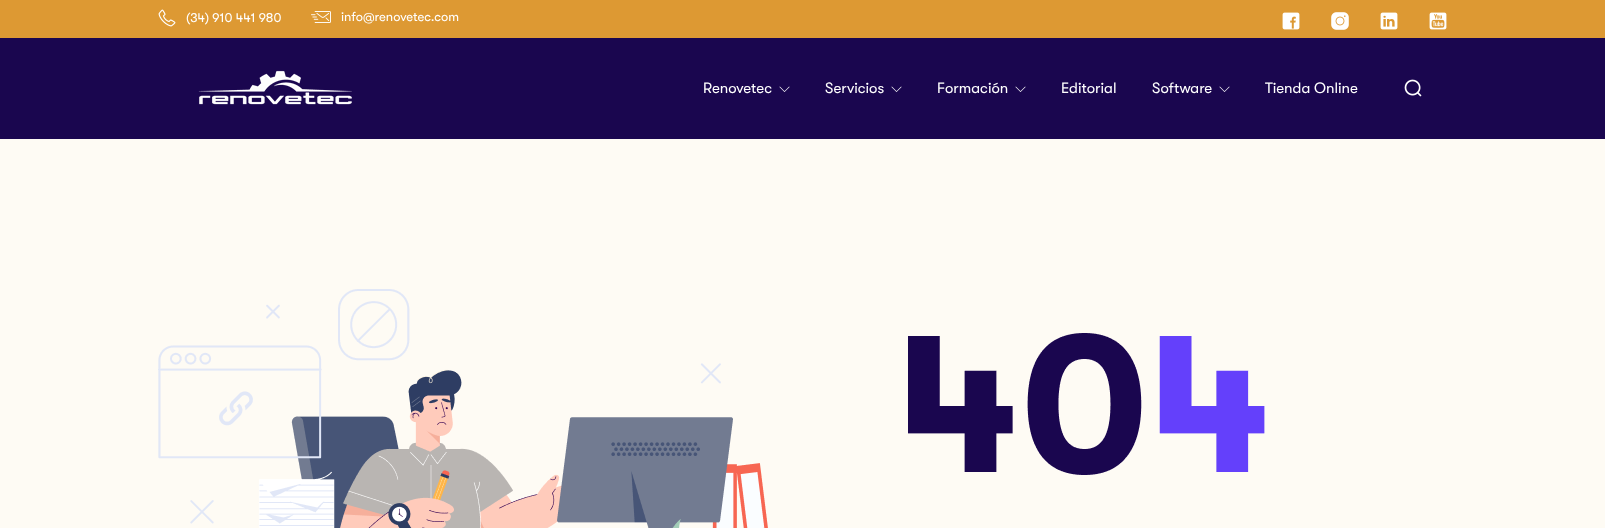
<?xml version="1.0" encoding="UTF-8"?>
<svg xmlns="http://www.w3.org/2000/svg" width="1605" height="528">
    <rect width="100%" height="100%" fill="#FEFBF4"/>
    <rect x="0" y="0" width="1605" height="38" fill="#DD9933"/>
    <image x="158" y="9" width="18" height="18" href="img_01.png"/>
    <text x="186" y="22" font-family="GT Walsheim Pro" font-size="13" fill="#FFFFFF">(34) 910 441 980</text>
    <image x="311" y="11" width="20" height="12" href="img_02.png"/>
    <text x="341" y="21" font-family="GT Walsheim Pro" font-size="13" fill="#FFFFFF">info@renovetec.com</text>
    <image x="1282" y="12" width="18" height="18" href="img_03.png"/>
    <image x="1331" y="12" width="18" height="18" href="img_04.png"/>
    <image x="1380" y="12" width="18" height="18" href="img_05.png"/>
    <image x="1429" y="12" width="18" height="18" href="img_06.png"/>
    <rect x="0" y="38" width="1605" height="101" fill="#1A064F"/>
    <image x="198" y="70" width="154" height="35" href="img_07.png"/>
    <text x="703" y="93" font-family="GT Walsheim Pro" font-size="15" fill="#FFFFFF">Renovetec</text>
    <image x="779" y="86" width="11" height="6" href="img_08.png"/>
    <text x="825" y="93" font-family="GT Walsheim Pro" font-size="15" fill="#FFFFFF">Servicios</text>
    <image x="891" y="86" width="11" height="6" href="img_08.png"/>
    <text x="937" y="93" font-family="GT Walsheim Pro" font-size="15" fill="#FFFFFF">Formación</text>
    <image x="1015" y="86" width="11" height="6" href="img_08.png"/>
    <text x="1061" y="93" font-family="GT Walsheim Pro" font-size="15" fill="#FFFFFF">Editorial</text>
    <text x="1152" y="93" font-family="GT Walsheim Pro" font-size="15" fill="#FFFFFF">Software</text>
    <image x="1219" y="86" width="11" height="6" href="img_08.png"/>
    <text x="1265" y="93" font-family="GT Walsheim Pro" font-size="15" fill="#FFFFFF">Tienda Online</text>
    <image x="1404" y="79" width="18" height="18" href="img_09.png"/>
    <image x="158" y="289" width="610" height="239" href="img_10.png"/>
    <image x="908" y="333" width="357" height="142" href="img_11.png"/>
</svg>
